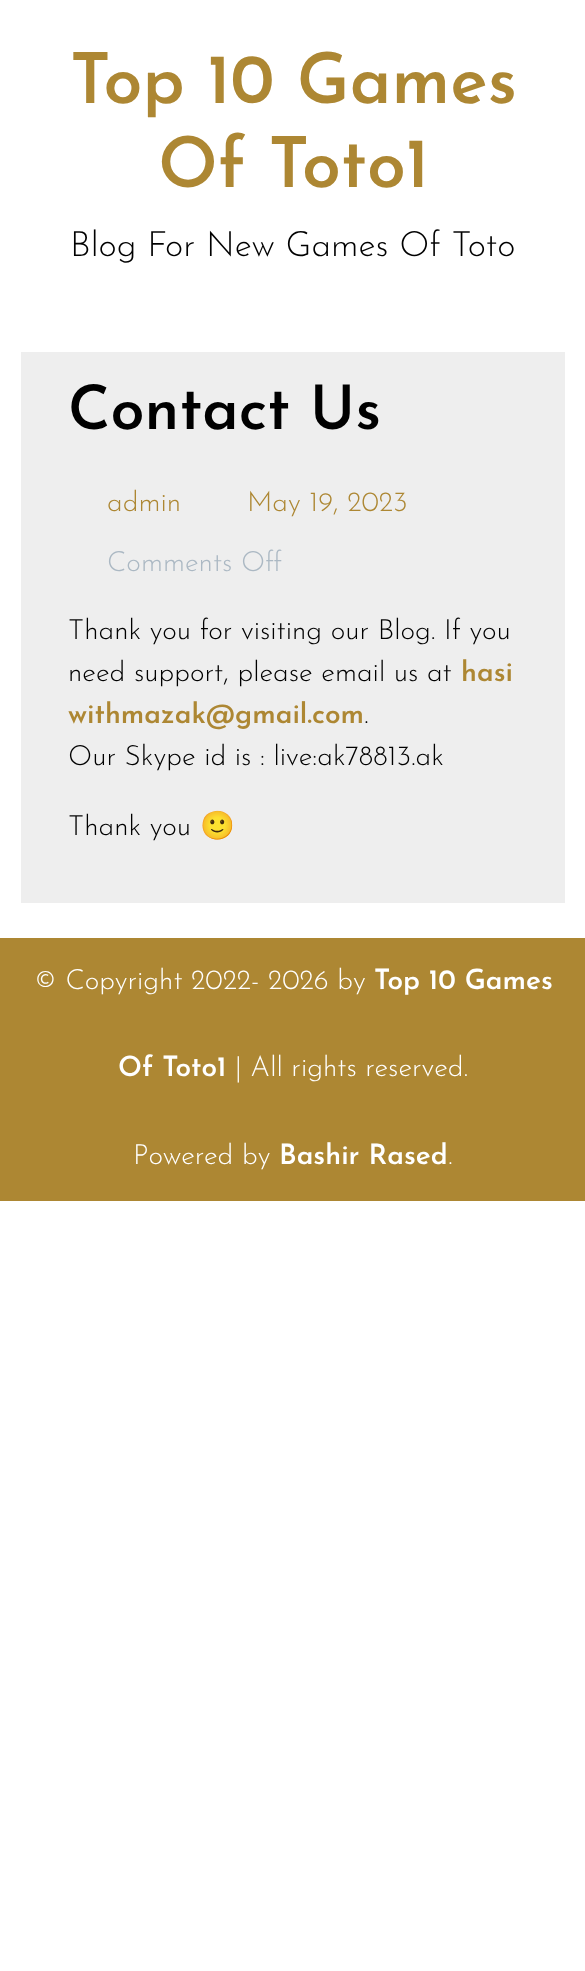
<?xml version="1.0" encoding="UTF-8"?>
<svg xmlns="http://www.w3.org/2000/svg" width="585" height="1971">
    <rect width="100%" height="100%" fill="#FFFFFF"/>
    <text x="70" y="103" font-family="Josefin Sans" font-size="70" font-weight="600" fill="#AD8733">Top 10 Games</text>
    <text x="158" y="187" font-family="Josefin Sans" font-size="70" font-weight="600" fill="#AD8733">Of Toto1</text>
    <text x="70" y="256" font-family="Josefin Sans" font-size="35" font-weight="300" fill="#000000">Blog For New Games Of Toto</text>
    <rect x="21" y="352" width="544" height="551" fill="#EEEEEE"/>
    <text x="68" y="429" font-family="Josefin Sans" font-size="61.25" font-weight="600" fill="#000000">Contact Us</text>
    <text x="107" y="511" font-family="Josefin Sans" font-size="28" font-weight="300" fill="#AD8733">admin</text>
    <text x="247" y="511" font-family="Josefin Sans" font-size="28" font-weight="300" fill="#AD8733">May 19, 2023</text>
    <text x="107" y="571" font-family="Josefin Sans" font-size="28" font-weight="300" fill="#ABB8C3">Comments Off</text>
    <text font-family="Josefin Sans" font-size="28" font-weight="300" fill="#000000">
        <tspan x="68" y="639">Thank you for visiting our Blog. If you</tspan>
        <tspan x="68" y="681">need support, please email us at</tspan>
    </text>
    <text x="461" y="681" font-family="Josefin Sans" font-size="28" font-weight="600" fill="#AD8733">hasi</text>
    <text x="68" y="723" font-family="Josefin Sans" font-size="28" font-weight="600" fill="#AD8733">withmazak@gmail.com</text>
    <text x="364" y="723" font-family="Josefin Sans" font-size="28" font-weight="300" fill="#000000">.</text>
    <text x="68" y="765" font-family="Josefin Sans" font-size="28" font-weight="300" fill="#000000">Our Skype id is : live:ak78813.ak</text>
    <text x="68" y="835" font-family="Josefin Sans" font-size="28" font-weight="300" fill="#000000">Thank you</text>
    <text x="200" y="835" font-family="Noto Color Emoji" font-size="28" fill="#000000">🙂</text>
    <rect x="0" y="938" width="585" height="263" fill="#AD8733"/>
    <text x="34" y="989" font-family="Josefin Sans" font-size="28" font-weight="300" fill="#FFFFFF">© Copyright 2022- 2026 by</text>
    <text x="374" y="989" font-family="Josefin Sans" font-size="28" font-weight="600" fill="#FFFFFF">Top 10 Games</text>
    <text x="118" y="1076" font-family="Josefin Sans" font-size="28" font-weight="600" fill="#FFFFFF">Of Toto1</text>
    <text x="235" y="1076" font-family="Josefin Sans" font-size="28" font-weight="300" fill="#FFFFFF">| All rights reserved.</text>
    <text x="133" y="1164" font-family="Josefin Sans" font-size="28" font-weight="300" fill="#FFFFFF">Powered by</text>
    <text x="279" y="1164" font-family="Josefin Sans" font-size="28" font-weight="600" fill="#FFFFFF">Bashir Rased</text>
    <text x="448" y="1164" font-family="Josefin Sans" font-size="28" font-weight="300" fill="#FFFFFF">.</text>
</svg>
